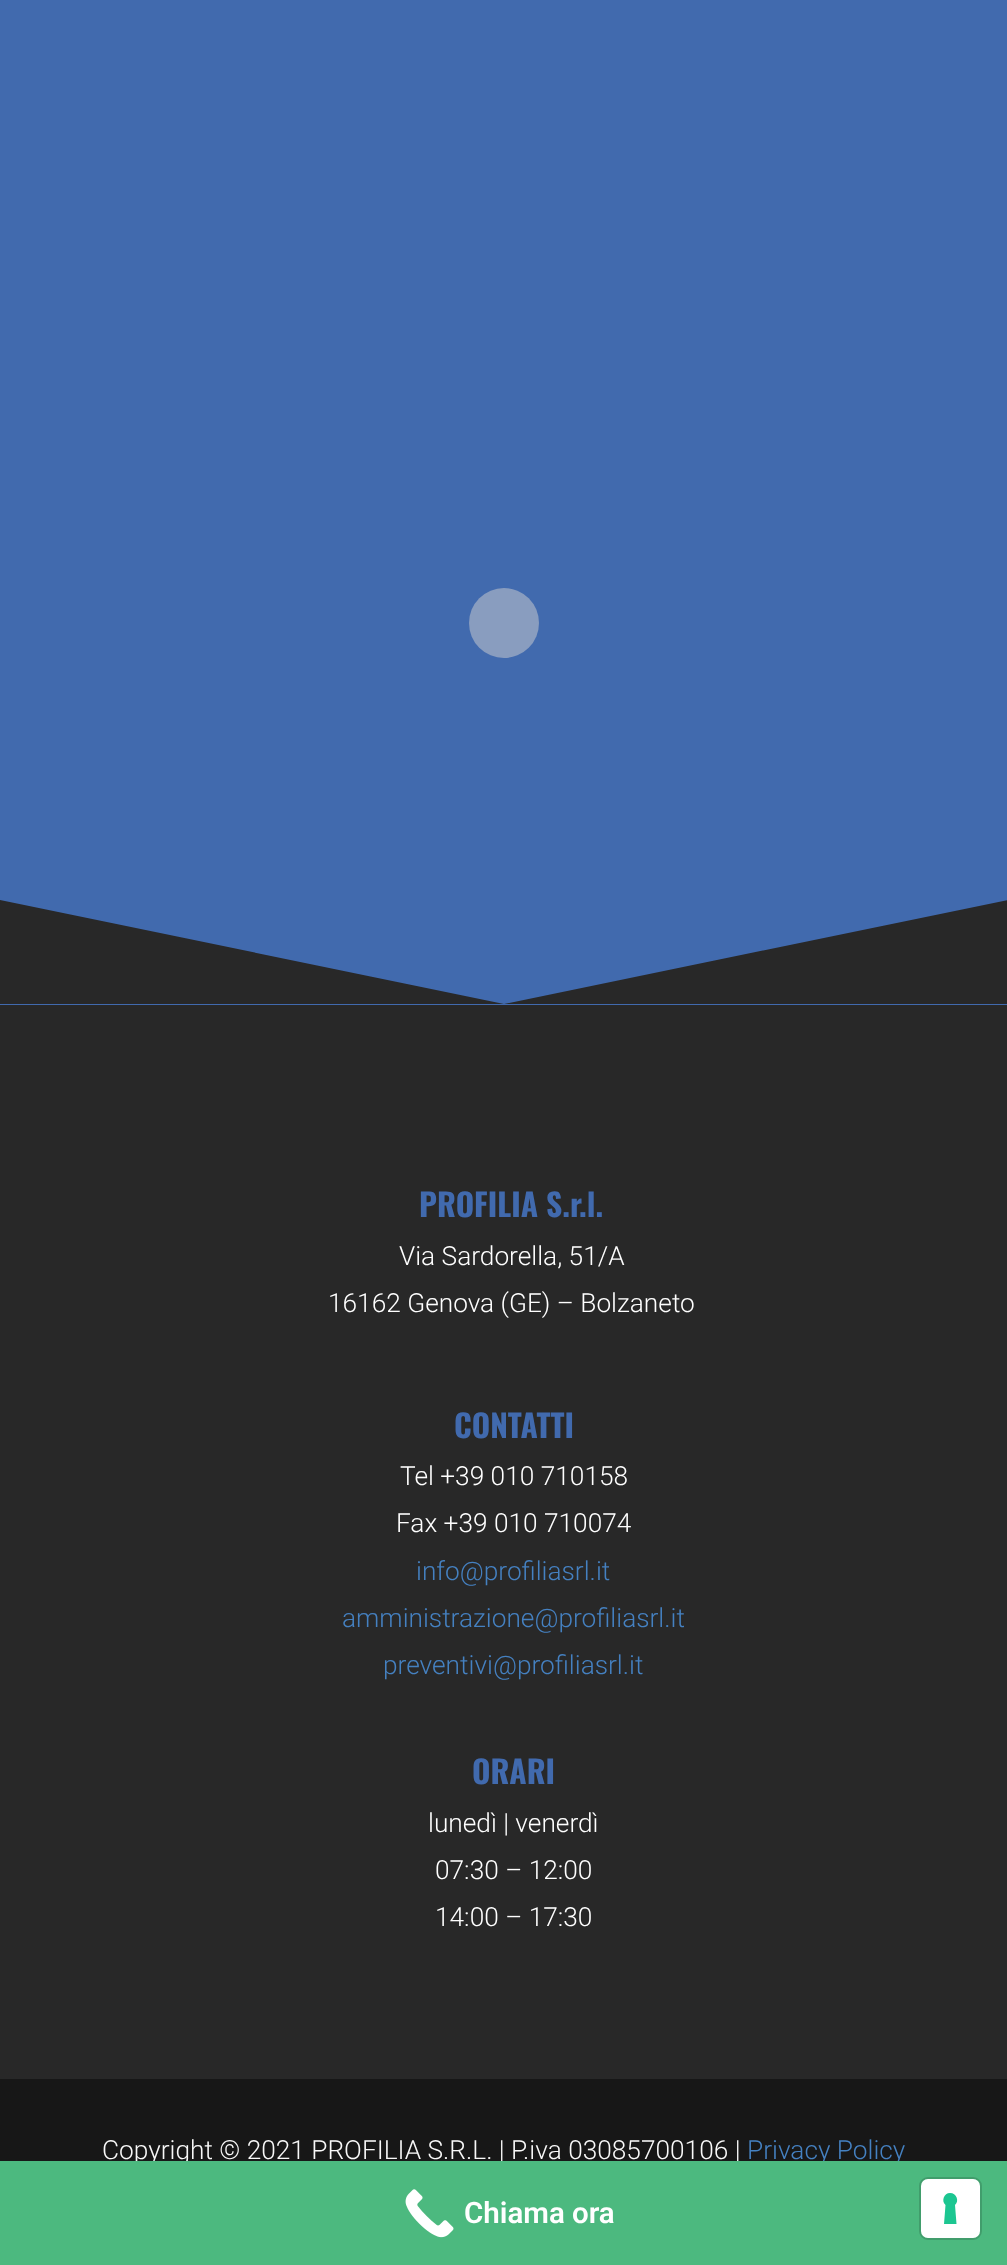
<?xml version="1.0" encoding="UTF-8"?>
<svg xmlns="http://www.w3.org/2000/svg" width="1007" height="2265">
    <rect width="100%" height="100%" fill="#416AAE"/>
    <circle cx="504" cy="623" r="35" fill="#899DBF"/>
    <path d="M 504 1004 L 0 900 V 1004 H 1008 V 900 Z" fill="#282828"/>
    <rect x="0" y="1005" width="1007" height="1074" fill="#282828"/>
    <text x="419" y="1217" font-family="Oswald" font-size="31.5" font-weight="700" fill="#416AAE">PROFILIA S.r.l.</text>
    <text x="399" y="1265" font-family="Roboto" font-size="26.25" font-weight="300" fill="#FFFFFF">Via Sardorella, 51/A</text>
    <text x="328" y="1312" font-family="Roboto" font-size="26.25" font-weight="300" fill="#FFFFFF">16162 Genova (GE) – Bolzaneto</text>
    <text x="454" y="1438" font-family="Oswald" font-size="31.5" font-weight="700" fill="#416AAE">CONTATTI</text>
    <text x="400" y="1485" font-family="Roboto" font-size="26.25" font-weight="300" fill="#FFFFFF">Tel +39 010 710158</text>
    <text x="396" y="1532" font-family="Roboto" font-size="26.25" font-weight="300" fill="#FFFFFF">Fax +39 010 710074</text>
    <text x="416" y="1580" font-family="Roboto" font-size="26.25" font-weight="300" fill="#4581C1">info@profiliasrl.it</text>
    <text x="342" y="1627" font-family="Roboto" font-size="26.25" font-weight="300" fill="#4581C1">amministrazione@profiliasrl.it</text>
    <text x="383" y="1674" font-family="Roboto" font-size="26.25" font-weight="300" fill="#4581C1">preventivi@profiliasrl.it</text>
    <text x="472" y="1784" font-family="Oswald" font-size="31.5" font-weight="700" fill="#416AAE">ORARI</text>
    <text x="428" y="1832" font-family="Roboto" font-size="26.25" font-weight="300" fill="#FFFFFF">lunedì | venerdì</text>
    <text font-family="Roboto" font-size="26.25" font-weight="300" fill="#FFFFFF">
        <tspan x="435" y="1879">07:30 – 12:00</tspan>
        <tspan x="435" y="1926">14:00 – 17:30</tspan>
    </text>
    <rect x="0" y="2079" width="1007" height="82" fill="#171717"/>
    <text x="102" y="2159" font-family="Roboto" font-size="26.25" font-weight="300" fill="#F9F9F9">Copyright © 2021 PROFILIA S.R.L. | P.iva 03085700106 |</text>
    <text x="747" y="2159" font-family="Roboto" font-size="26.25" font-weight="300" fill="#4581C1">Privacy Policy</text>
    <rect x="0" y="2161" width="1007" height="104" fill="#4CB97F"/>
    <image x="405" y="2189" width="49" height="49" href="img_01.png"/>
    <text x="464" y="2223" font-family="Roboto" font-size="29.5" font-weight="600" fill="#FFFFFF">Chiama ora</text>
    <rect x="920" y="2178" width="61" height="61" rx="8" fill="none" stroke="#419D6C" stroke-width="2"/>
    <rect x="921" y="2179" width="59" height="59" rx="7" fill="#FFFFFF"/>
    <path d="M 950 2193 C 956.5 2193 959.5 2201 955 2205 L 956.5 2224 H 944 L 945.5 2205 C 941 2201 944 2193 950 2193 Z" fill="#1CC691" fill-rule="evenodd"/>
</svg>
